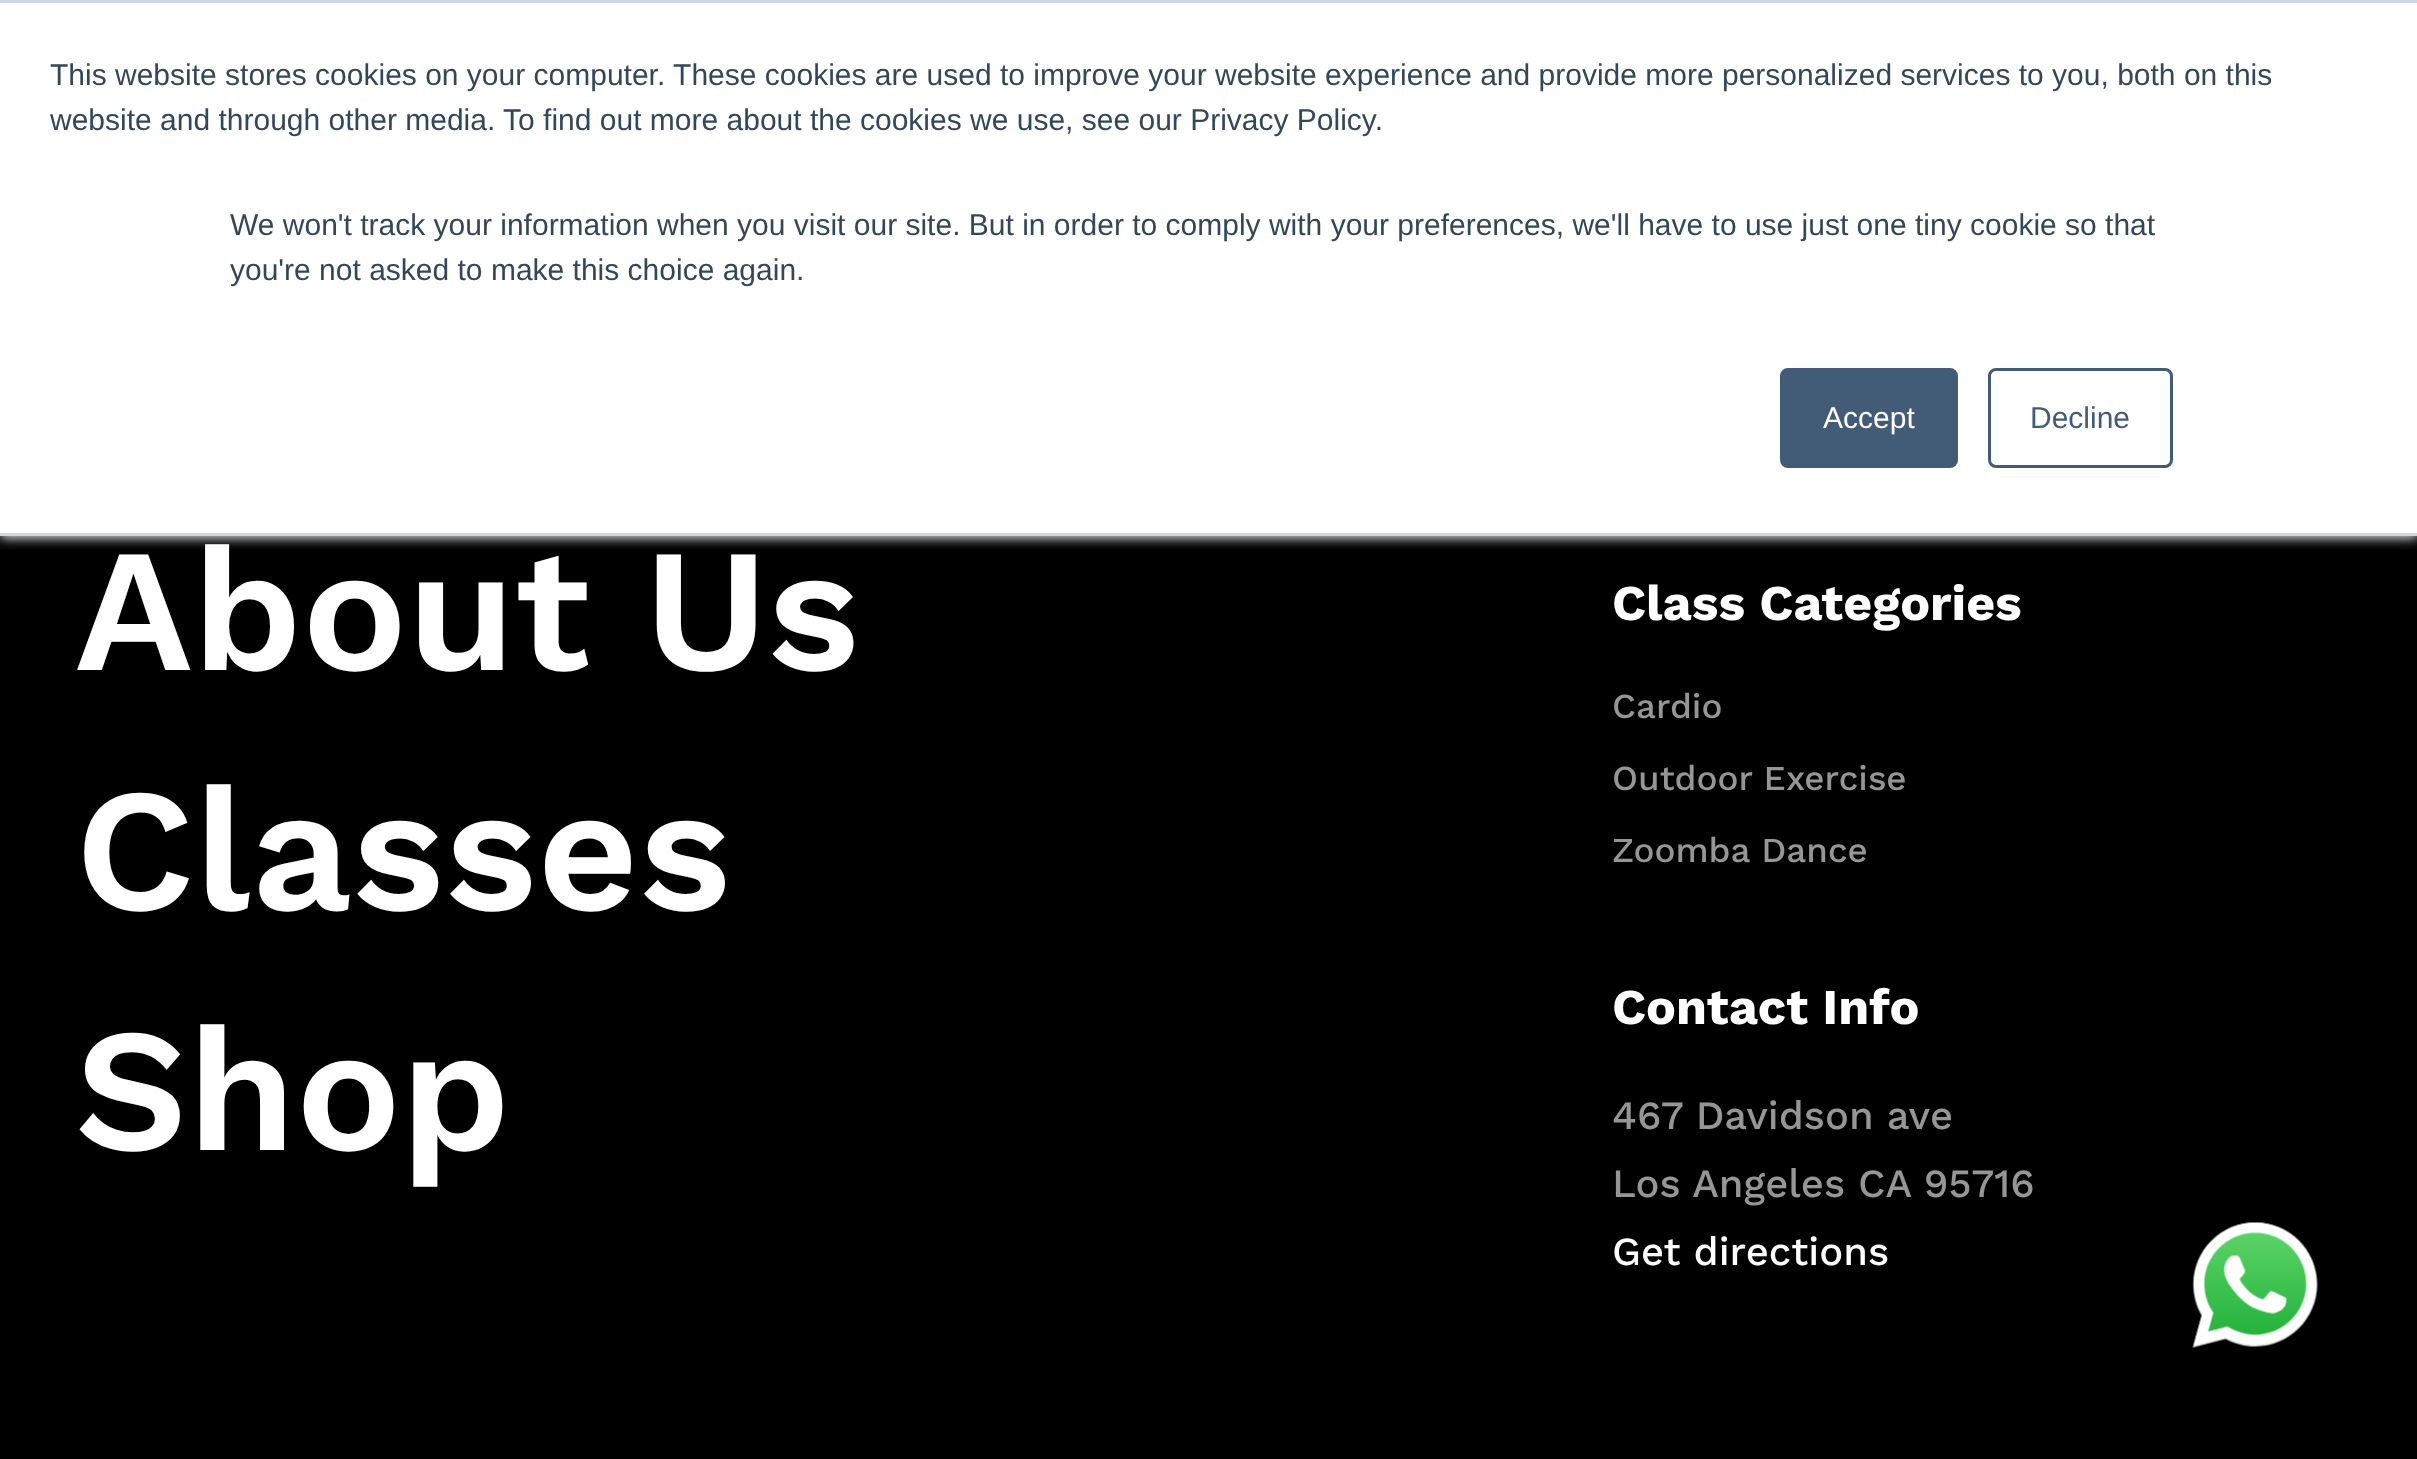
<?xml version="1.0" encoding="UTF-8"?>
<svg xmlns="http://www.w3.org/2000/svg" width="2417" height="1459">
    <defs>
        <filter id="blur1" x="-50%" y="-200%" width="200%" height="500%"><feGaussianBlur stdDeviation="6"/></filter>
    </defs>
    <rect width="100%" height="100%" fill="#000000"/>
    <rect x="0" y="3" width="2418" height="535" fill="#EAF0F6" filter="url(#blur1)"/>
    <rect x="0" y="3" width="2417" height="530" fill="#FFFFFF"/>
    <rect x="0" y="0" width="2417" height="3" fill="#CBD6E2"/>
    <rect x="0" y="533" width="2417" height="3" fill="#CBD6E2"/>
    <text font-family="Liberation Sans" font-size="30" fill="#33475B">
        <tspan x="50" y="85">This website stores cookies on your computer. These cookies are used to improve your website experience and provide more personalized services to you, both on this</tspan>
        <tspan x="50" y="130">website and through other media. To find out more about the cookies we use, see our Privacy Policy.</tspan>
    </text>
    <text font-family="Liberation Sans" font-size="30" fill="#33475B">
        <tspan x="230" y="235">We won't track your information when you visit our site. But in order to comply with your preferences, we'll have to use just one tiny cookie so that</tspan>
        <tspan x="230" y="280">you're not asked to make this choice again.</tspan>
    </text>
    <rect x="1781.5" y="369.5" width="175" height="97" rx="6.5" fill="#425B76" stroke="#425B76" stroke-width="3"/>
    <text x="1823" y="428" font-family="Liberation Sans" font-size="30" fill="#FFFFFF">Accept</text>
    <rect x="1989.5" y="369.5" width="182" height="97" rx="6.5" fill="none" stroke="#425B76" stroke-width="3"/>
    <text x="2030" y="428" font-family="Liberation Sans" font-size="30" fill="#425B76">Decline</text>
    <text font-family="Work Sans" font-size="175" font-weight="600" fill="#FFFFFF">
        <tspan x="75" y="670">About Us</tspan>
        <tspan x="75" y="910">Classes</tspan>
        <tspan x="75" y="1150">Shop</tspan>
    </text>
    <text x="1612" y="620" font-family="Work Sans" font-size="50" font-weight="700" fill="#FFFFFF">Class Categories</text>
    <text x="1612" y="718" font-family="Work Sans" font-size="35" font-weight="500" fill="#969696">Cardio</text>
    <text x="1612" y="790" font-family="Work Sans" font-size="35" font-weight="500" fill="#969696">Outdoor Exercise</text>
    <text x="1612" y="862" font-family="Work Sans" font-size="35" font-weight="500" fill="#969696">Zoomba Dance</text>
    <text x="1612" y="1024" font-family="Work Sans" font-size="50" font-weight="700" fill="#FFFFFF">Contact Info</text>
    <text font-family="Work Sans" font-size="40" font-weight="500" fill="#969696">
        <tspan x="1612" y="1129">467 Davidson ave</tspan>
        <tspan x="1612" y="1197">Los Angeles CA 95716</tspan>
    </text>
    <text x="1612" y="1265" font-family="Work Sans" font-size="40" font-weight="500" fill="#FFFFFF">Get directions</text>
    <image x="2192" y="1222" width="126" height="126" href="img_01.png"/>
</svg>
